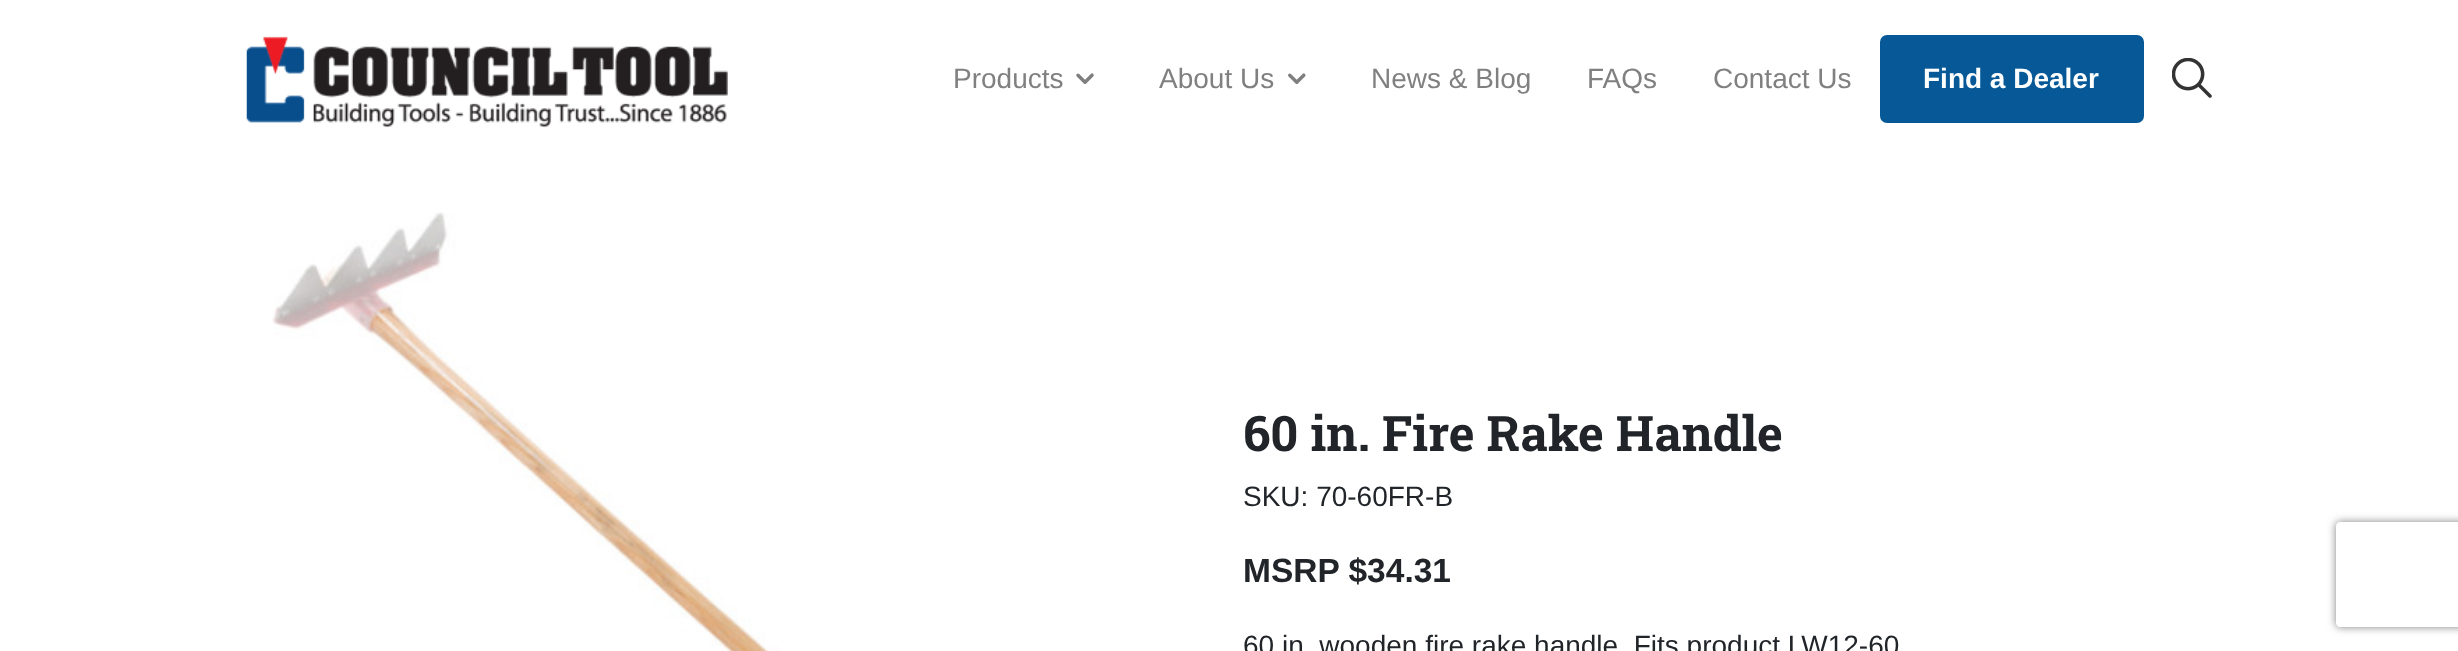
<?xml version="1.0" encoding="UTF-8"?>
<svg xmlns="http://www.w3.org/2000/svg" width="2458" height="651">
    <defs>
        <clipPath id="clip1"><path d="M 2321 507 H 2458 V 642 H 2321 Z M 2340 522 H 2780 C 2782 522 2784 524 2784 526 V 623 C 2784 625 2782 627 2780 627 H 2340 C 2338 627 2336 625 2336 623 V 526 C 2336 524 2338 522 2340 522 Z" clip-rule="evenodd"/></clipPath>
        <filter id="blur1" x="-50%" y="-200%" width="200%" height="500%"><feGaussianBlur stdDeviation="4.5"/></filter>
    </defs>
    <rect width="100%" height="100%" fill="#FFFFFF"/>
    <image x="246" y="36" width="482" height="92" href="img_01.png"/>
    <text x="953" y="88" font-family="Liberation Sans" font-size="28" fill="#808080">Products</text>
    <image x="1076" y="73" width="18" height="11" href="img_02.png"/>
    <text x="1159" y="88" font-family="Liberation Sans" font-size="28" fill="#808080">About Us</text>
    <image x="1288" y="73" width="18" height="11" href="img_03.png"/>
    <text x="1371" y="88" font-family="Liberation Sans" font-size="28" fill="#808080">News &amp; Blog</text>
    <text x="1587" y="88" font-family="Liberation Sans" font-size="28" fill="#808080">FAQs</text>
    <text x="1713" y="88" font-family="Liberation Sans" font-size="28" fill="#808080">Contact Us</text>
    <rect x="1881" y="36" width="262" height="86" rx="6" fill="#065897" stroke="#065897" stroke-width="2"/>
    <text x="1923" y="88" font-family="Liberation Sans" font-size="28" font-weight="700" fill="#FFFFFF">Find a Dealer</text>
    <image x="2172" y="58" width="40" height="40" href="img_04.png"/>
    <image x="272" y="212" width="507" height="439" href="img_05.png"/>
    <text x="1243" y="451" font-family="Roboto Slab" font-size="49" font-weight="700" fill="#212529">60 in. Fire Rake Handle</text>
    <text x="1243" y="506" font-family="Liberation Sans" font-size="28" fill="#212529">SKU: 70-60FR-B</text>
    <text x="1243" y="582" font-family="Liberation Sans" font-size="33.5" font-weight="700" fill="#212529">MSRP $34.31</text>
    <text x="1243" y="655" font-family="Liberation Sans" font-size="28" fill="#212529">60 in. wooden fire rake handle. Fits product LW12-60</text>
    <g clip-path="url(#clip1)">
        <rect x="2336" y="522" width="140" height="105" rx="4" fill="#808080" filter="url(#blur1)"/>
    </g>
</svg>
